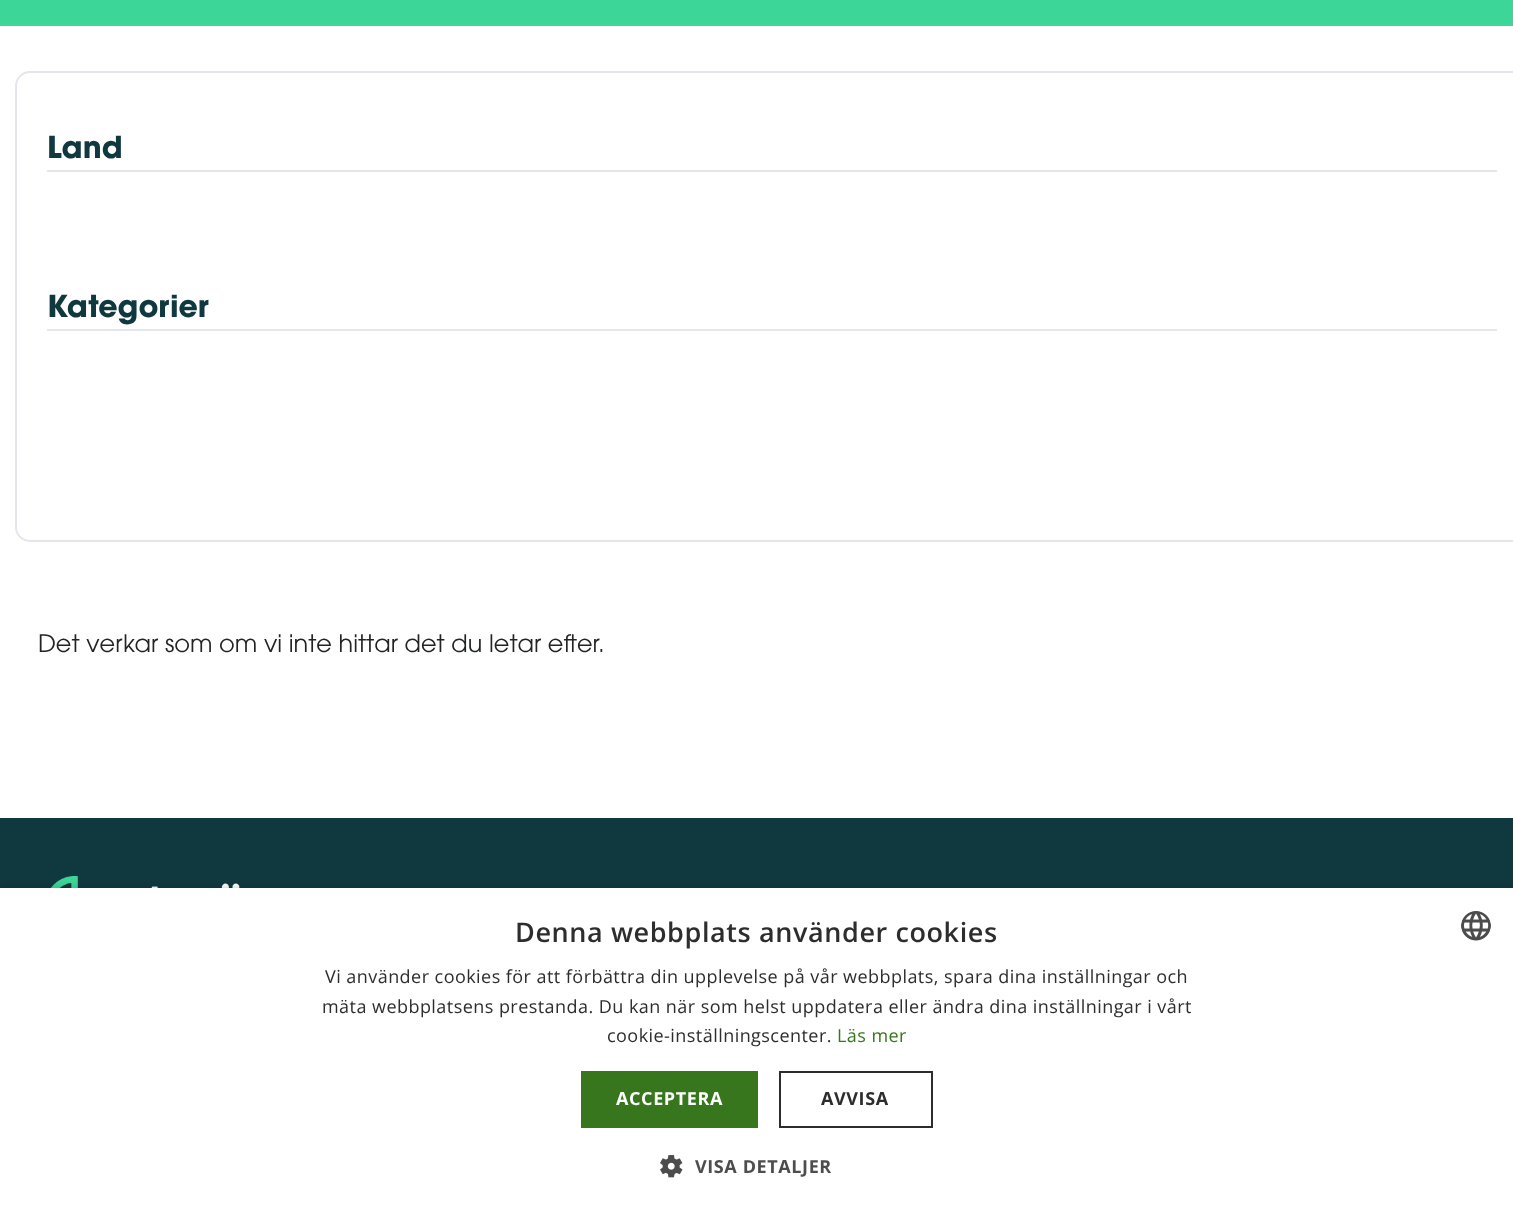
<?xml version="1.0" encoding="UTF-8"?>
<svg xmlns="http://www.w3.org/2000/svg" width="1513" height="1216">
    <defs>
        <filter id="blur1" x="-50%" y="-200%" width="200%" height="500%"><feGaussianBlur stdDeviation="6"/></filter>
    </defs>
    <rect width="100%" height="100%" fill="#FFFFFF"/>
    <rect x="0" y="0" width="1513" height="26" fill="#3CD699"/>
    <rect x="16" y="72" width="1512" height="469" rx="14" fill="none" stroke="#E4E6EB" stroke-width="2"/>
    <rect x="47" y="170" width="1450" height="2" fill="#E4E6EB"/>
    <text x="47" y="158" font-family="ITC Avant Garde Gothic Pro" font-size="30" font-weight="700" fill="#10383F">Land</text>
    <rect x="47" y="329" width="1450" height="2" fill="#E4E6EB"/>
    <text x="47" y="317" font-family="ITC Avant Garde Gothic Pro" font-size="30" font-weight="700" fill="#10383F">Kategorier</text>
    <text x="38" y="652" font-family="ITC Avant Garde Gothic Pro" font-size="24" font-weight="300" fill="#222323">Det verkar som om vi inte hittar det du letar efter.</text>
    <rect x="0" y="818" width="1513" height="70" fill="#10383F"/>
    <image x="50" y="876" width="190" height="12" href="img_01.png"/>
    <rect x="2" y="891" width="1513" height="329" fill="#000000" fill-opacity="0.35" filter="url(#blur1)"/>
    <rect x="0" y="888" width="1513" height="328" fill="#FFFFFF"/>
    <text x="515" y="942" font-family="Open Sans" font-size="27" font-weight="600" letter-spacing="0.6" fill="#2D2D2D">Denna webbplats använder cookies</text>
    <image x="1461" y="911" width="30" height="30" href="img_02.png"/>
    <text x="325" y="983" font-family="Open Sans" font-size="18" letter-spacing="0.45" fill="#2D2D2D">Vi använder cookies för att förbättra din upplevelse på vår webbplats, spara dina inställningar och</text>
    <text x="322" y="1013" font-family="Open Sans" font-size="18" letter-spacing="0.45" fill="#2D2D2D">mäta webbplatsens prestanda. Du kan när som helst uppdatera eller ändra dina inställningar i vårt</text>
    <text x="607" y="1042" font-family="Open Sans" font-size="18" letter-spacing="0.45" fill="#2D2D2D">cookie-inställningscenter.</text>
    <text x="837" y="1042" font-family="Open Sans" font-size="18" letter-spacing="0.45" fill="#38761D">Läs mer</text>
    <rect x="581" y="1071" width="177" height="57" fill="#38761D"/>
    <text x="616" y="1105" font-family="Open Sans" font-size="18" font-weight="700" letter-spacing="0.6" fill="#FFFFFF">ACCEPTERA</text>
    <rect x="780" y="1072" width="152" height="55" fill="none" stroke="#2D2D2D" stroke-width="2"/>
    <text x="821" y="1105" font-family="Open Sans" font-size="18" font-weight="700" letter-spacing="0.6" fill="#2D2D2D">AVVISA</text>
    <image x="660" y="1155" width="23" height="23" href="img_03.png"/>
    <text x="695" y="1173" font-family="Open Sans" font-size="18" font-weight="700" letter-spacing="0.6" fill="#4D4D4D">VISA DETALJER</text>
</svg>
